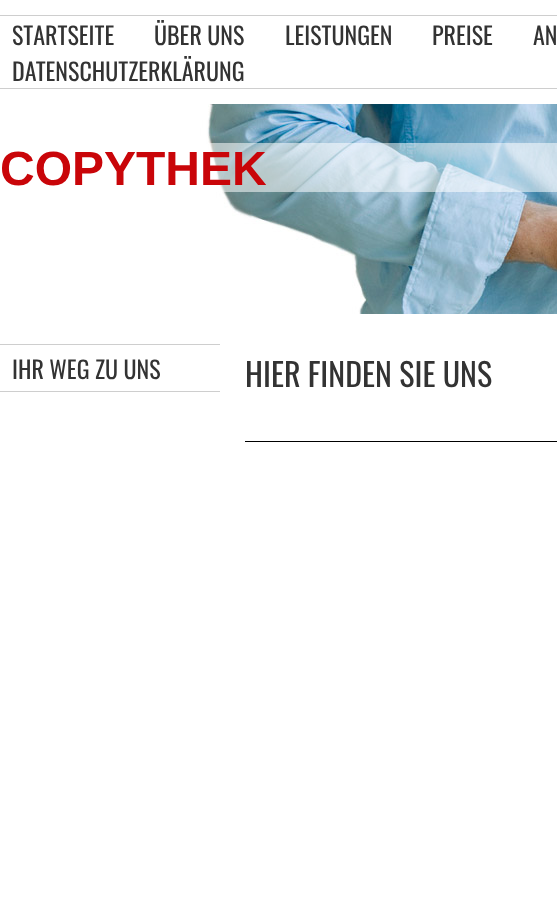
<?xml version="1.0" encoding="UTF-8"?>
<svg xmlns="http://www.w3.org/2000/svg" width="557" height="903">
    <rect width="100%" height="100%" fill="#FFFFFF"/>
    <rect x="0" y="15" width="557" height="1" fill="#CECECE"/>
    <rect x="0" y="88" width="557" height="1" fill="#CECECE"/>
    <text x="12" y="45" font-family="Oswald" font-size="24" fill="#333333">STARTSEITE</text>
    <text x="154" y="45" font-family="Oswald" font-size="24" fill="#333333">ÜBER UNS</text>
    <text x="285" y="45" font-family="Oswald" font-size="24" fill="#333333">LEISTUNGEN</text>
    <text x="432" y="45" font-family="Oswald" font-size="24" fill="#333333">PREISE</text>
    <text x="533" y="45" font-family="Oswald" font-size="24" fill="#333333">AN</text>
    <text x="12" y="81" font-family="Oswald" font-size="24" fill="#333333">DATENSCHUTZERKLÄRUNG</text>
    <image x="0" y="104" width="557" height="210" href="img_01.png"/>
    <rect x="209" y="143" width="348" height="49" fill="#FFFFFF" fill-opacity="0.54"/>
    <text x="0" y="185" font-family="Liberation Sans" font-size="48" font-weight="700" fill="#C90509">COPYTHEK</text>
    <rect x="0" y="344" width="220" height="1" fill="#CECECE"/>
    <rect x="0" y="391" width="220" height="1" fill="#CECECE"/>
    <text x="12" y="379" font-family="Oswald" font-size="24" fill="#333333">IHR WEG ZU UNS</text>
    <text x="245" y="387" font-family="Oswald" font-size="32" fill="#333333">HIER FINDEN SIE UNS</text>
    <rect x="245" y="441" width="312" height="1" fill="#000000"/>
</svg>
